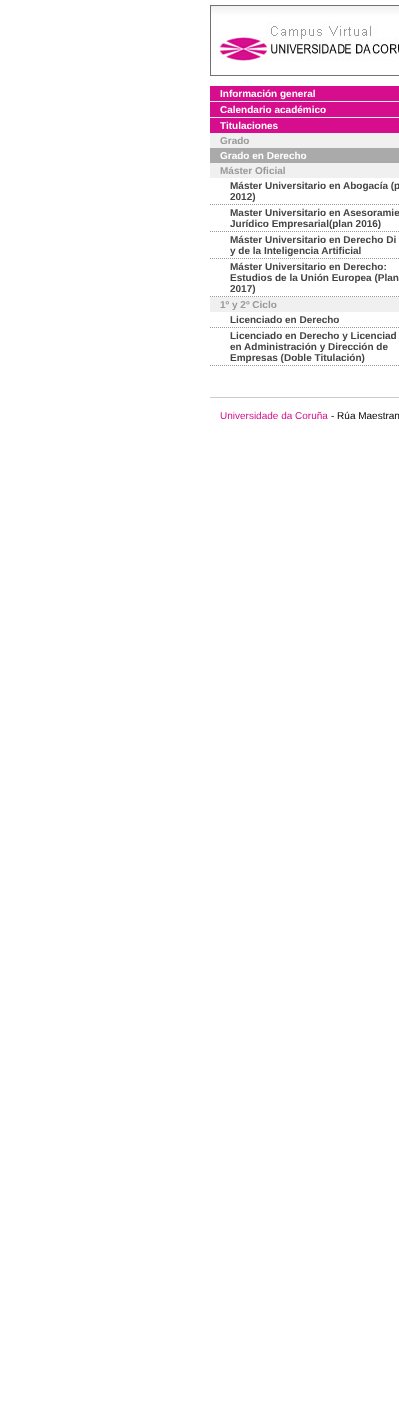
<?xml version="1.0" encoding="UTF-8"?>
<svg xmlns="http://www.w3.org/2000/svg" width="399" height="1421">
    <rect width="100%" height="100%" fill="#FFFFFF"/>
    <image x="210" y="5" width="189" height="71" href="img_01.png"/>
    <rect x="210" y="101" width="189" height="211" fill="#F0F0F0"/>
    <rect x="210" y="86" width="189" height="15" fill="#D60D8C"/>
    <text x="220" y="97" font-family="Liberation Sans" font-size="10" font-weight="700" fill="#FFFFFF">Información general</text>
    <rect x="210" y="102" width="189" height="15" fill="#D60D8C"/>
    <text x="220" y="113" font-family="Liberation Sans" font-size="10" font-weight="700" fill="#FFFFFF">Calendario académico</text>
    <rect x="210" y="118" width="189" height="15" fill="#D60D8C"/>
    <text x="220" y="129" font-family="Liberation Sans" font-size="10" font-weight="700" fill="#FFFFFF">Titulaciones</text>
    <text x="220" y="144" font-family="Liberation Sans" font-size="10" font-weight="700" fill="#999999">Grado</text>
    <rect x="210" y="148" width="189" height="15" fill="#AAAAAA"/>
    <text x="220" y="159" font-family="Liberation Sans" font-size="10" font-weight="700" fill="#FFFFFF">Grado en Derecho</text>
    <text x="220" y="174" font-family="Liberation Sans" font-size="10" font-weight="700" fill="#999999">Máster Oficial</text>
    <rect x="210" y="178" width="189" height="119" fill="#FFFFFF"/>
    <path d="M 210 204.5 H 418" fill="none" stroke="#999999" stroke-dasharray="1 1"/>
    <text font-family="Liberation Sans" font-size="10" font-weight="700" fill="#444444">
        <tspan x="230" y="189">Máster Universitario en Abogacía (p</tspan>
        <tspan x="230" y="200">2012)</tspan>
    </text>
    <path d="M 210 231.5 H 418" fill="none" stroke="#999999" stroke-dasharray="1 1"/>
    <text font-family="Liberation Sans" font-size="10" font-weight="700" fill="#444444">
        <tspan x="230" y="216">Master Universitario en Asesoramie</tspan>
        <tspan x="230" y="227">Jurídico Empresarial(plan 2016)</tspan>
    </text>
    <path d="M 210 258.5 H 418" fill="none" stroke="#999999" stroke-dasharray="1 1"/>
    <text font-family="Liberation Sans" font-size="10" font-weight="700" fill="#444444">
        <tspan x="230" y="243">Máster Universitario en Derecho Di</tspan>
        <tspan x="230" y="254">y de la Inteligencia Artificial</tspan>
    </text>
    <path d="M 210 296.5 H 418" fill="none" stroke="#999999" stroke-dasharray="1 1"/>
    <text font-family="Liberation Sans" font-size="10" font-weight="700" fill="#444444">
        <tspan x="230" y="270">Máster Universitario en Derecho:</tspan>
        <tspan x="230" y="281">Estudios de la Unión Europea (Plan</tspan>
        <tspan x="230" y="292">2017)</tspan>
    </text>
    <text x="220" y="308" font-family="Liberation Sans" font-size="10" font-weight="700" fill="#999999">1º y 2º Ciclo</text>
    <path d="M 210 327.5 H 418" fill="none" stroke="#999999" stroke-dasharray="1 1"/>
    <text x="230" y="323" font-family="Liberation Sans" font-size="10" font-weight="700" fill="#444444">Licenciado en Derecho</text>
    <path d="M 210 365.5 H 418" fill="none" stroke="#999999" stroke-dasharray="1 1"/>
    <text font-family="Liberation Sans" font-size="10" font-weight="700" fill="#444444">
        <tspan x="230" y="339">Licenciado en Derecho y Licenciad</tspan>
        <tspan x="230" y="350">en Administración y Dirección de</tspan>
        <tspan x="230" y="361">Empresas (Doble Titulación)</tspan>
    </text>
    <rect x="210" y="397" width="189" height="1" fill="#CCCCCC"/>
    <text x="220" y="419" font-family="Liberation Sans" font-size="10" fill="#D60D8C">Universidade da Coruña</text>
    <text x="331" y="419" font-family="Liberation Sans" font-size="10" fill="#000000">- Rúa Maestran</text>
</svg>
